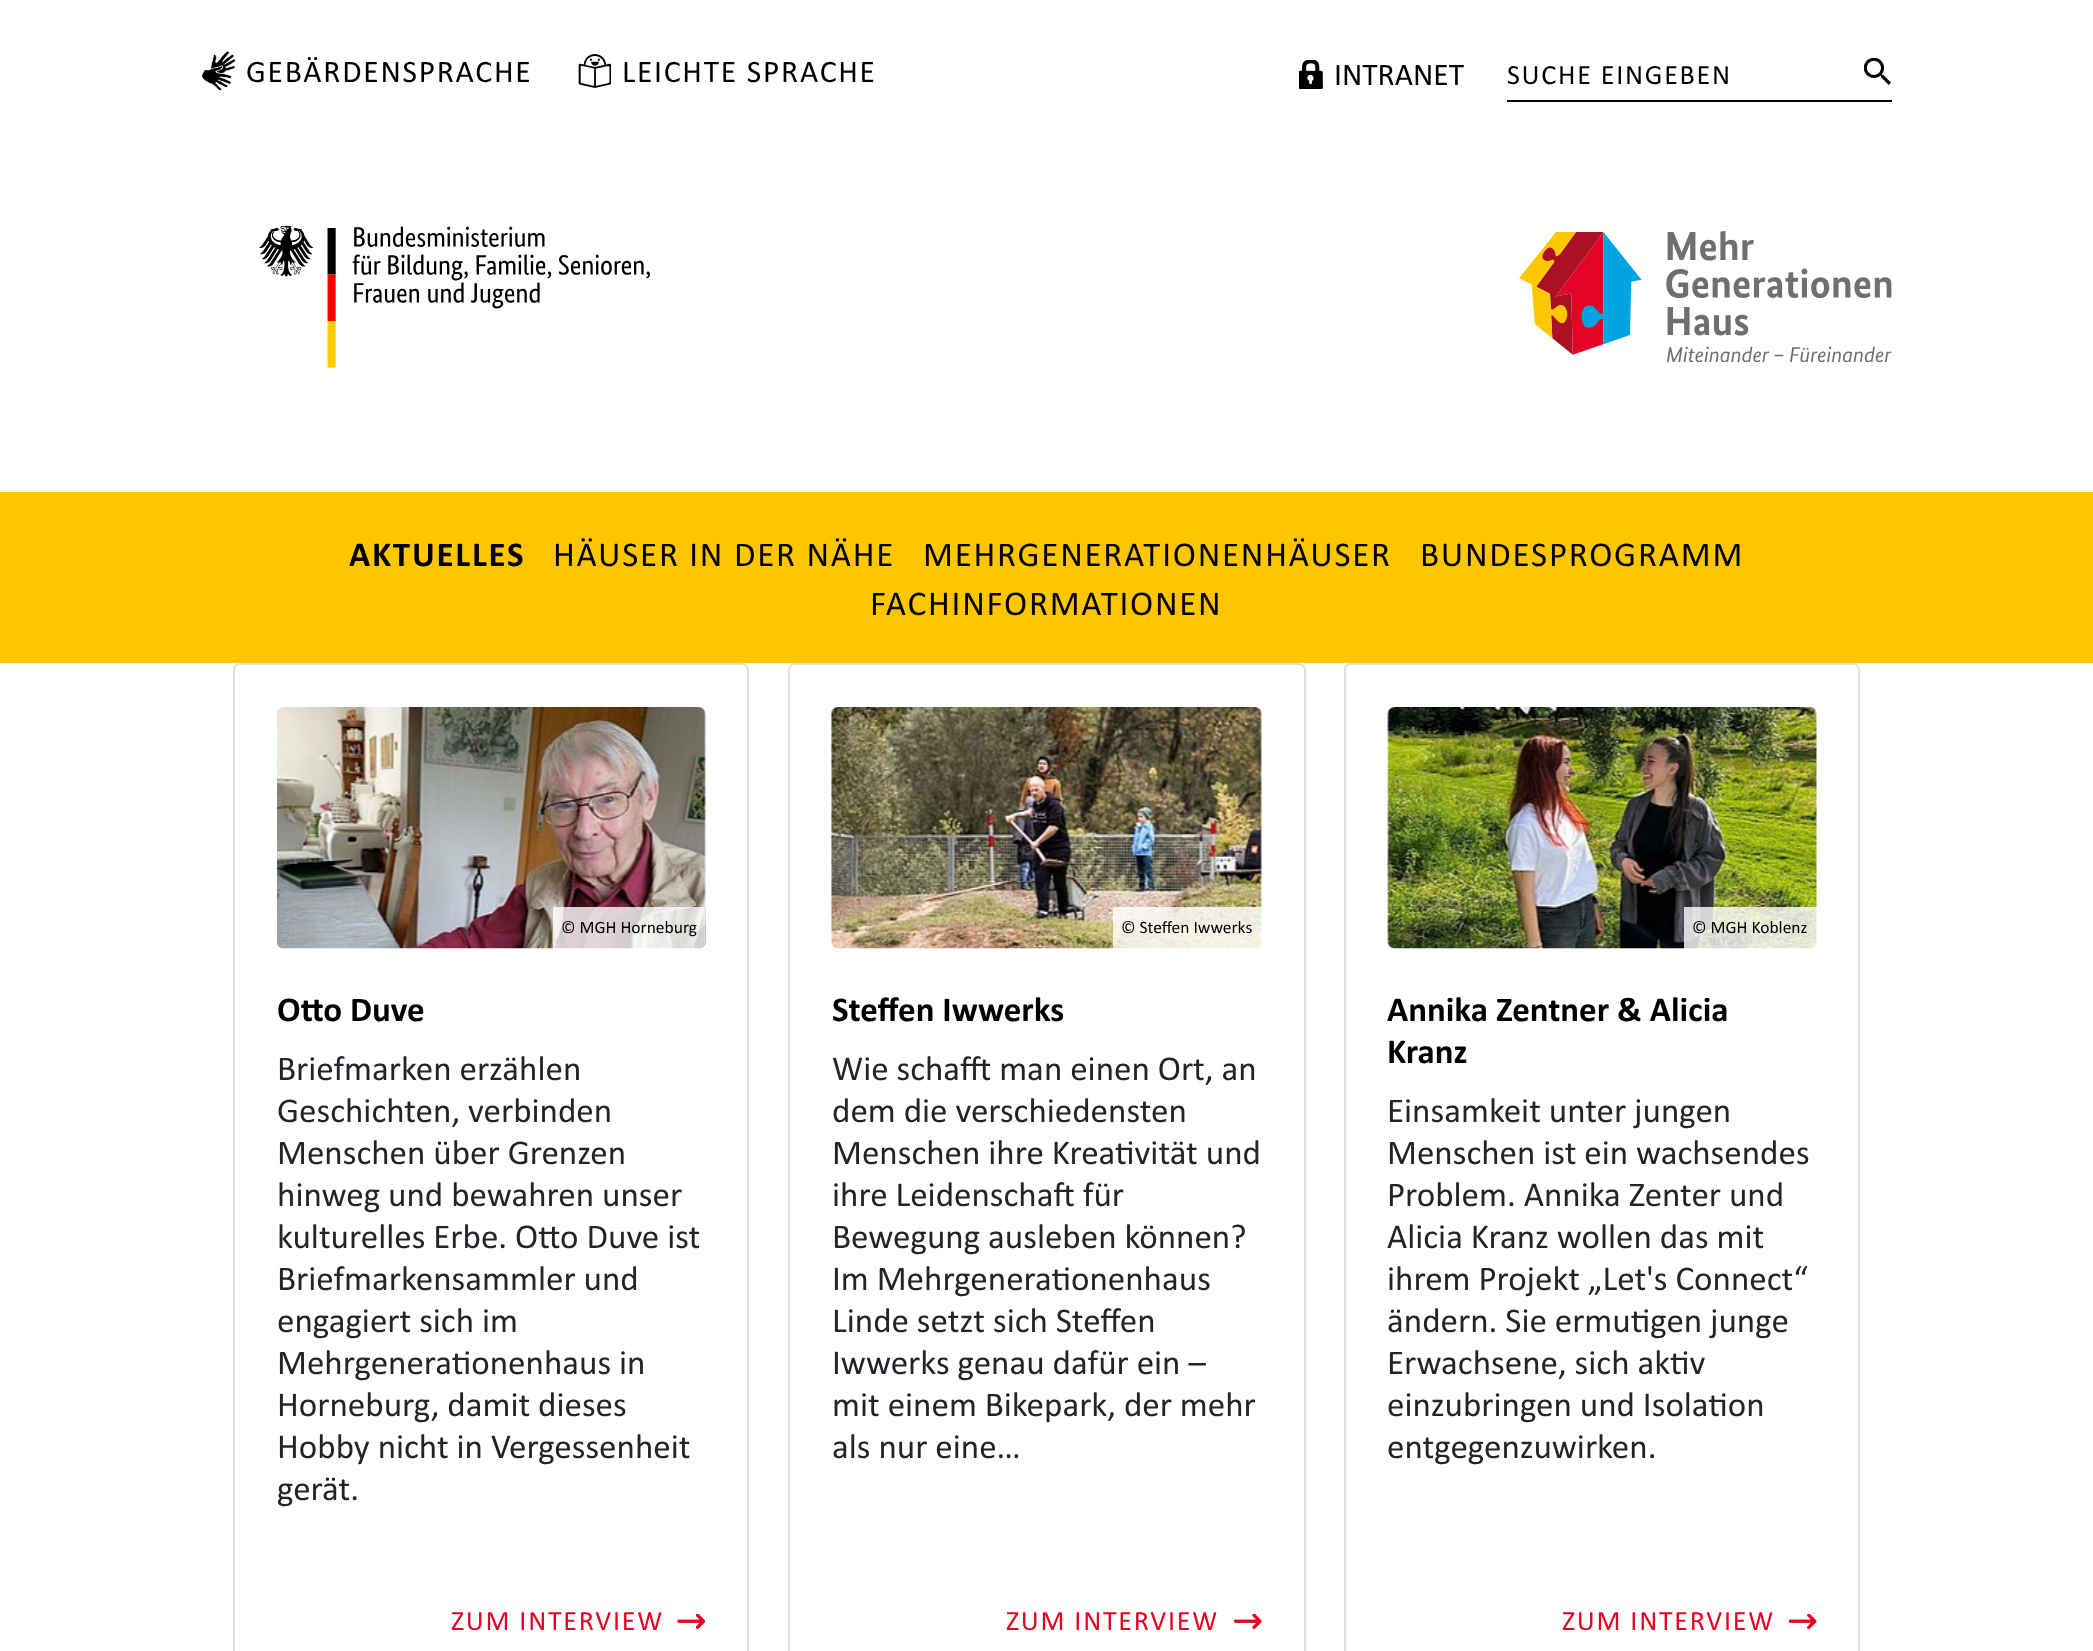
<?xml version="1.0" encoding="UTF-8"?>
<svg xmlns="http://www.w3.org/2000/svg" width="2093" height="1651">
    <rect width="100%" height="100%" fill="#FFFFFF"/>
    <image x="201" y="51" width="35" height="40" href="img_01.png"/>
    <text x="246" y="82" font-family="Calibri" font-size="31.5" letter-spacing="1.75" fill="#000000">GEBÄRDENSPRACHE</text>
    <image x="578" y="54" width="33" height="34" href="img_02.png"/>
    <text x="622" y="82" font-family="Calibri" font-size="31.5" letter-spacing="1.75" fill="#000000">LEICHTE SPRACHE</text>
    <image x="1299" y="60" width="24" height="29" href="img_03.png"/>
    <text x="1334" y="85" font-family="Calibri" font-size="31.5" fill="#000000">INTRANET</text>
    <rect x="1507" y="100" width="385" height="2" fill="#000000"/>
    <text x="1507" y="84" font-family="Calibri" font-size="28" letter-spacing="1.75" fill="#000000">SUCHE EINGEBEN</text>
    <image x="1864" y="58" width="27" height="27" href="img_04.png"/>
    <image x="259" y="225" width="391" height="143" href="img_05.png"/>
    <image x="1519" y="231" width="373" height="131" href="img_06.png"/>
    <rect x="0" y="492" width="2093" height="171" fill="#FDC600"/>
    <text x="349" y="566" font-family="Calibri" font-size="35" font-weight="700" letter-spacing="1.75" fill="#000000">AKTUELLES</text>
    <text x="553" y="566" font-family="Calibri" font-size="35" letter-spacing="1.75" fill="#000000">HÄUSER IN DER NÄHE</text>
    <text x="923" y="566" font-family="Calibri" font-size="35" letter-spacing="1.75" fill="#000000">MEHRGENERATIONENHÄUSER</text>
    <text x="1420" y="566" font-family="Calibri" font-size="35" letter-spacing="1.75" fill="#000000">BUNDESPROGRAMM</text>
    <text x="870" y="615" font-family="Calibri" font-size="35" letter-spacing="1.75" fill="#000000">FACHINFORMATIONEN</text>
    <rect x="234" y="664" width="514" height="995" rx="6" fill="none" stroke="#DFDFDF" stroke-width="2"/>
    <image x="277" y="707" width="429" height="242" href="img_07.png"/>
    <path d="M 553 907 H 705 V 942 C 705 946 702 949 698 949 H 553 Z" fill="#FFFFFF" fill-opacity="0.8"/>
    <text x="561" y="933" font-family="Calibri" font-size="17.5" fill="#000000">© MGH Horneburg</text>
    <text x="277" y="1021" font-family="Calibri" font-size="35" font-weight="700" fill="#000000">Otto Duve</text>
    <text font-family="Calibri" font-size="35" fill="#212529">
        <tspan x="277" y="1080">Briefmarken erzählen</tspan>
        <tspan x="277" y="1122">Geschichten, verbinden</tspan>
        <tspan x="277" y="1164">Menschen über Grenzen</tspan>
        <tspan x="277" y="1206">hinweg und bewahren unser</tspan>
        <tspan x="277" y="1248">kulturelles Erbe. Otto Duve ist</tspan>
        <tspan x="277" y="1290">Briefmarkensammler und</tspan>
        <tspan x="277" y="1332">engagiert sich im</tspan>
        <tspan x="277" y="1374">Mehrgenerationenhaus in</tspan>
        <tspan x="277" y="1416">Horneburg, damit dieses</tspan>
        <tspan x="277" y="1458">Hobby nicht in Vergessenheit</tspan>
        <tspan x="277" y="1500">gerät.</tspan>
    </text>
    <text x="451" y="1630" font-family="Calibri" font-size="28" letter-spacing="1.75" fill="#E60022">ZUM INTERVIEW</text>
    <image x="677" y="1614" width="28" height="15" href="img_08.png"/>
    <rect x="789" y="664" width="516" height="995" rx="6" fill="none" stroke="#DFDFDF" stroke-width="2"/>
    <image x="830" y="707" width="433" height="242" href="img_09.png"/>
    <path d="M 1113 907 H 1262 V 942 C 1262 946 1259 949 1255 949 H 1113 Z" fill="#FFFFFF" fill-opacity="0.8"/>
    <text x="1121" y="933" font-family="Calibri" font-size="17.5" fill="#000000">© Steffen Iwwerks</text>
    <text x="832" y="1021" font-family="Calibri" font-size="35" font-weight="700" fill="#000000">Steffen Iwwerks</text>
    <text font-family="Calibri" font-size="35" fill="#212529">
        <tspan x="832" y="1080">Wie schafft man einen Ort, an</tspan>
        <tspan x="832" y="1122">dem die verschiedensten</tspan>
        <tspan x="832" y="1164">Menschen ihre Kreativität und</tspan>
        <tspan x="832" y="1206">ihre Leidenschaft für</tspan>
        <tspan x="832" y="1248">Bewegung ausleben können?</tspan>
        <tspan x="832" y="1290">Im Mehrgenerationenhaus</tspan>
        <tspan x="832" y="1332">Linde setzt sich Steffen</tspan>
        <tspan x="832" y="1374">Iwwerks genau dafür ein –</tspan>
        <tspan x="832" y="1416">mit einem Bikepark, der mehr</tspan>
        <tspan x="832" y="1458">als nur eine…</tspan>
    </text>
    <text x="1006" y="1630" font-family="Calibri" font-size="28" letter-spacing="1.75" fill="#E60022">ZUM INTERVIEW</text>
    <image x="1234" y="1614" width="28" height="15" href="img_10.png"/>
    <rect x="1345" y="664" width="514" height="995" rx="6" fill="none" stroke="#DFDFDF" stroke-width="2"/>
    <image x="1387" y="707" width="430" height="242" href="img_11.png"/>
    <path d="M 1684 907 H 1817 V 942 C 1817 946 1814 949 1810 949 H 1684 Z" fill="#FFFFFF" fill-opacity="0.8"/>
    <text x="1692" y="933" font-family="Calibri" font-size="17.5" fill="#000000">© MGH Koblenz</text>
    <text font-family="Calibri" font-size="35" font-weight="700" fill="#000000">
        <tspan x="1387" y="1021">Annika Zentner &amp; Alicia</tspan>
        <tspan x="1387" y="1063">Kranz</tspan>
    </text>
    <text font-family="Calibri" font-size="35" fill="#212529">
        <tspan x="1387" y="1122">Einsamkeit unter jungen</tspan>
        <tspan x="1387" y="1164">Menschen ist ein wachsendes</tspan>
        <tspan x="1387" y="1206">Problem. Annika Zenter und</tspan>
        <tspan x="1387" y="1248">Alicia Kranz wollen das mit</tspan>
        <tspan x="1387" y="1290">ihrem Projekt „Let's Connect“</tspan>
        <tspan x="1387" y="1332">ändern. Sie ermutigen junge</tspan>
        <tspan x="1387" y="1374">Erwachsene, sich aktiv</tspan>
        <tspan x="1387" y="1416">einzubringen und Isolation</tspan>
        <tspan x="1387" y="1458">entgegenzuwirken.</tspan>
    </text>
    <text x="1562" y="1630" font-family="Calibri" font-size="28" letter-spacing="1.75" fill="#E60022">ZUM INTERVIEW</text>
    <image x="1789" y="1614" width="28" height="15" href="img_12.png"/>
</svg>
